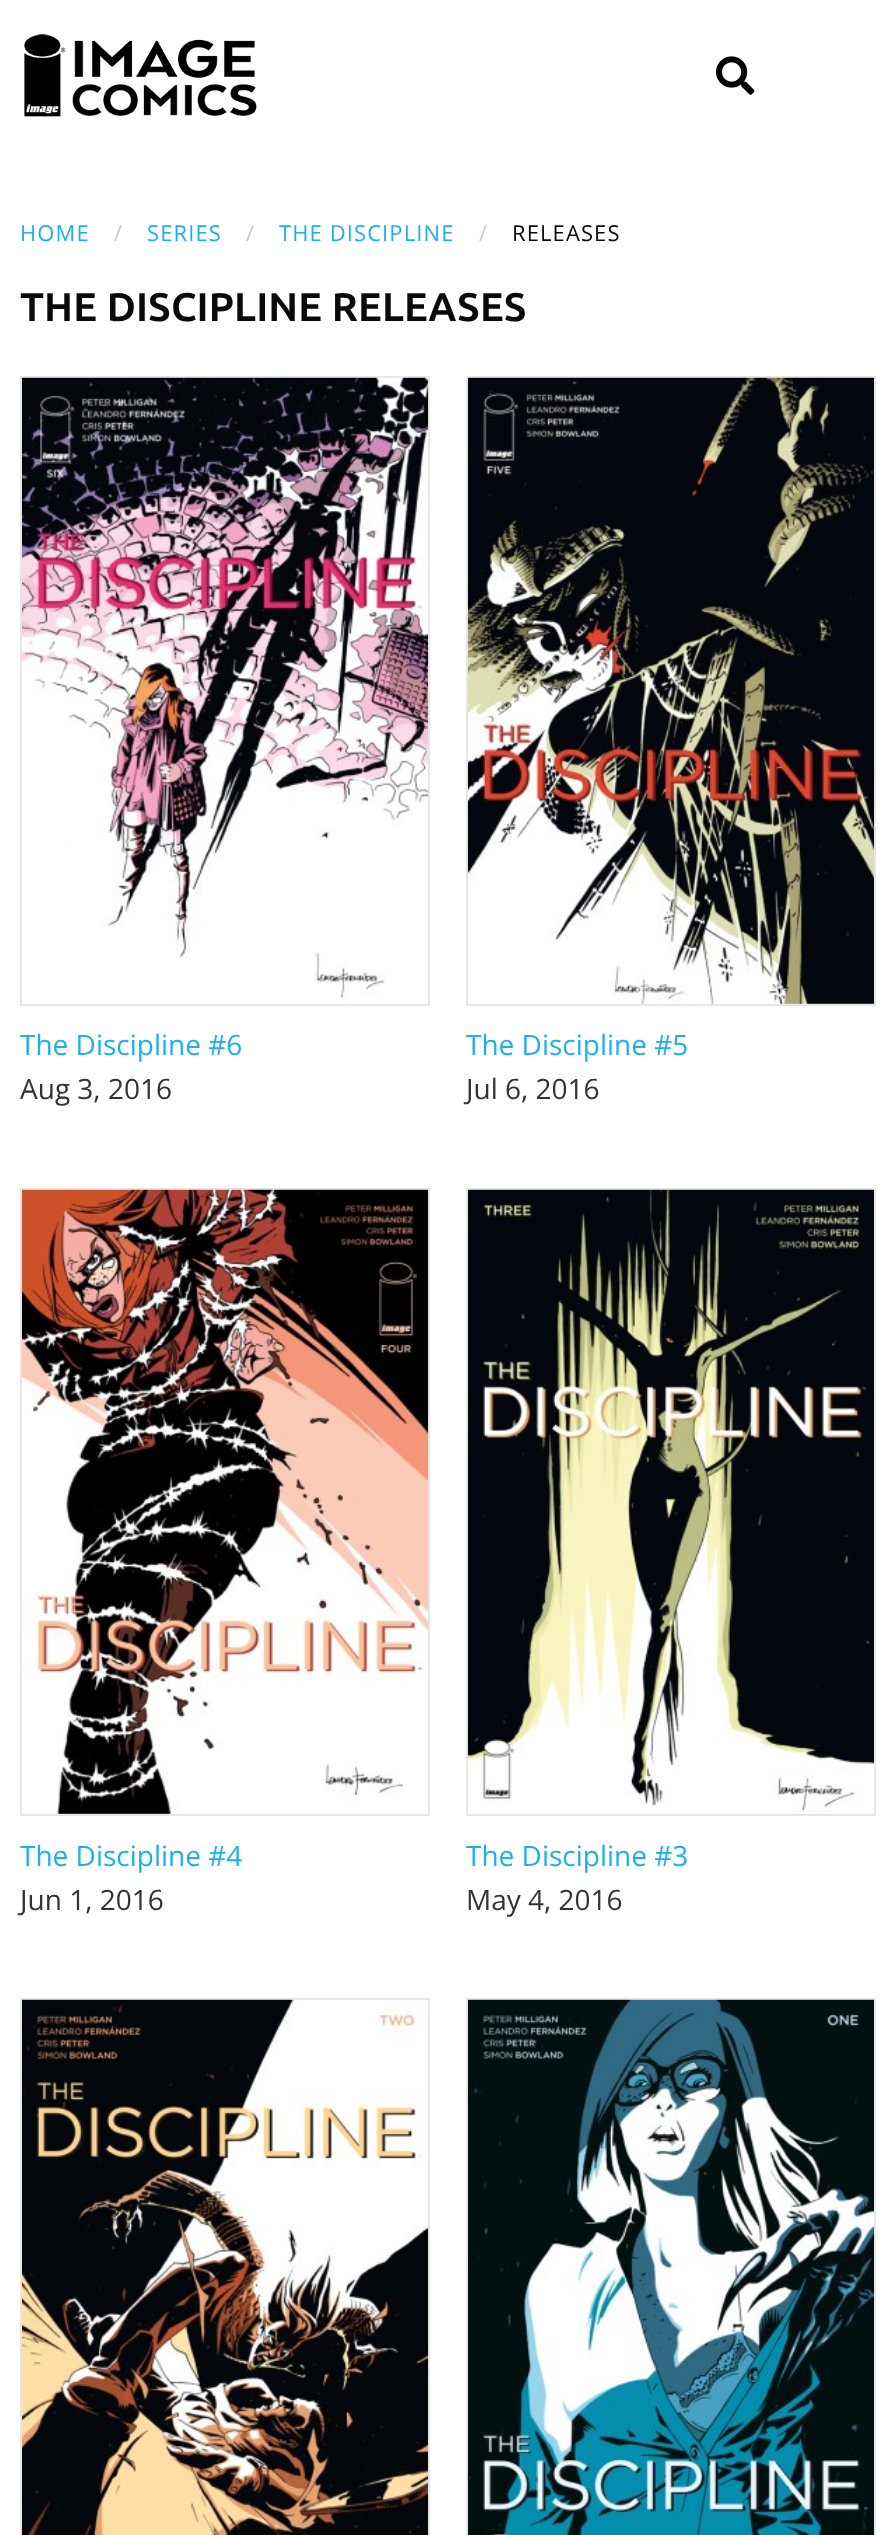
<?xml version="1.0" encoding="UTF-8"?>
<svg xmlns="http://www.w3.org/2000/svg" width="892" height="2535">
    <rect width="100%" height="100%" fill="#FFFFFF"/>
    <image x="24" y="34" width="233" height="83" href="img_01.png"/>
    <image x="716" y="56" width="39" height="39" href="img_02.png"/>
    <text x="20" y="241" font-family="Open Sans" font-size="22" letter-spacing="1.1" fill="#1DAFEC">HOME</text>
    <text x="114" y="241" font-family="Open Sans" font-size="22" letter-spacing="1.1" fill="#CACACA">/</text>
    <text x="147" y="241" font-family="Open Sans" font-size="22" letter-spacing="1.1" fill="#1DAFEC">SERIES</text>
    <text x="246" y="241" font-family="Open Sans" font-size="22" letter-spacing="1.1" fill="#CACACA">/</text>
    <text x="279" y="241" font-family="Open Sans" font-size="22" letter-spacing="1.1" fill="#1DAFEC">THE DISCIPLINE</text>
    <text x="479" y="241" font-family="Open Sans" font-size="22" letter-spacing="1.1" fill="#CACACA">/</text>
    <text x="512" y="241" font-family="Open Sans" font-size="22" letter-spacing="1.1" fill="#0A0A0A">RELEASES</text>
    <text x="20" y="321" font-family="Ubuntu" font-size="40" font-weight="700" letter-spacing="0.1" fill="#0A0A0A">THE DISCIPLINE RELEASES</text>
    <rect x="21" y="377" width="408" height="628" fill="none" stroke="#E6E6E6" stroke-width="2"/>
    <image x="22" y="377" width="406" height="627" href="img_03.png"/>
    <text x="20" y="1055" font-family="Open Sans" font-size="28" fill="#1DAFEC">The Discipline #6</text>
    <text x="20" y="1099" font-family="Open Sans" font-size="28" fill="#333333">Aug 3, 2016</text>
    <rect x="467" y="377" width="408" height="628" fill="none" stroke="#E6E6E6" stroke-width="2"/>
    <image x="468" y="377" width="406" height="627" href="img_04.png"/>
    <text x="466" y="1055" font-family="Open Sans" font-size="28" fill="#1DAFEC">The Discipline #5</text>
    <text x="466" y="1099" font-family="Open Sans" font-size="28" fill="#333333">Jul 6, 2016</text>
    <rect x="21" y="1189" width="408" height="626" fill="none" stroke="#E6E6E6" stroke-width="2"/>
    <image x="22" y="1189" width="406" height="625" href="img_05.png"/>
    <text x="20" y="1866" font-family="Open Sans" font-size="28" fill="#1DAFEC">The Discipline #4</text>
    <text x="20" y="1910" font-family="Open Sans" font-size="28" fill="#333333">Jun 1, 2016</text>
    <rect x="467" y="1189" width="408" height="626" fill="none" stroke="#E6E6E6" stroke-width="2"/>
    <image x="468" y="1189" width="406" height="625" href="img_06.png"/>
    <text x="466" y="1866" font-family="Open Sans" font-size="28" fill="#1DAFEC">The Discipline #3</text>
    <text x="466" y="1910" font-family="Open Sans" font-size="28" fill="#333333">May 4, 2016</text>
    <rect x="21" y="1999" width="408" height="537" fill="none" stroke="#E6E6E6" stroke-width="2"/>
    <image x="22" y="1999" width="406" height="536" href="img_07.png"/>
    <rect x="467" y="1999" width="408" height="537" fill="none" stroke="#E6E6E6" stroke-width="2"/>
    <image x="468" y="1999" width="406" height="536" href="img_08.png"/>
</svg>
